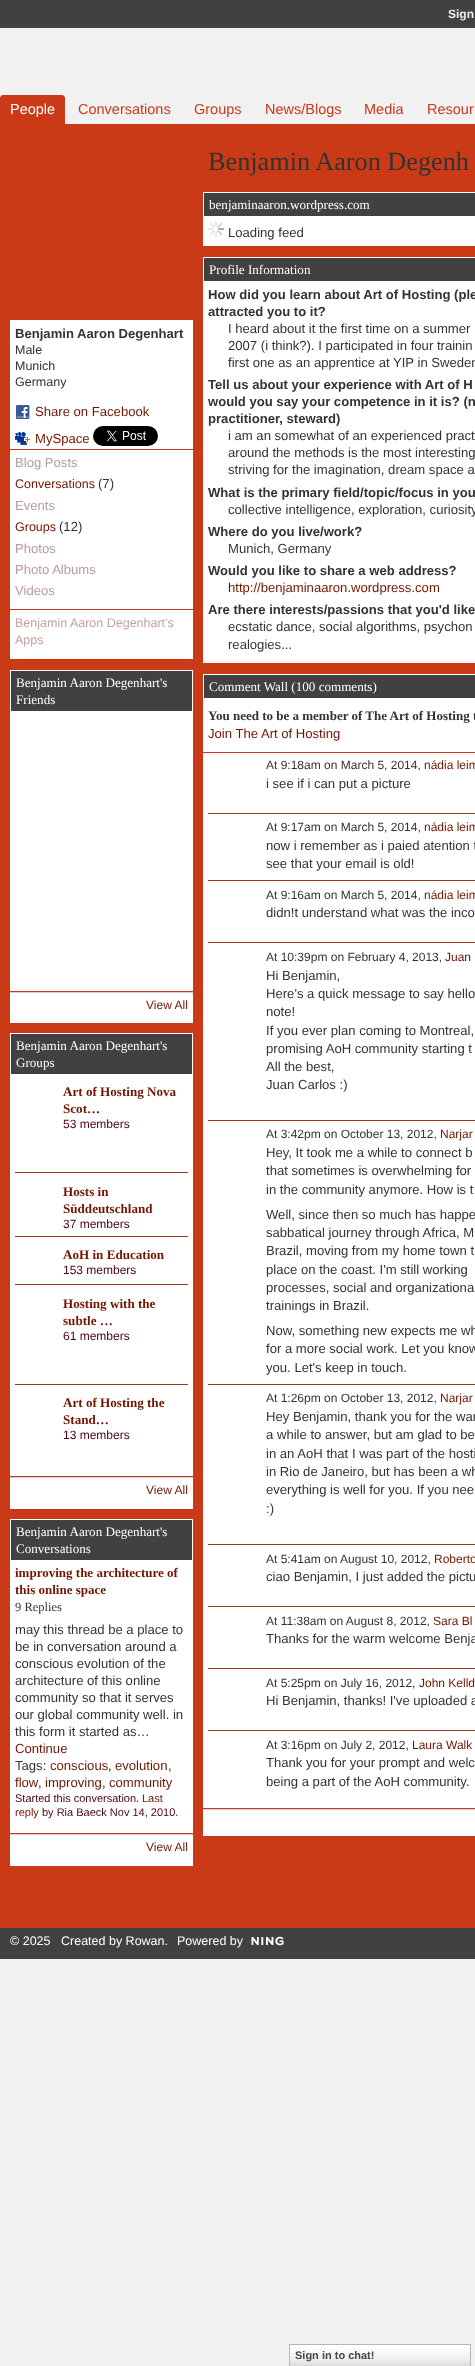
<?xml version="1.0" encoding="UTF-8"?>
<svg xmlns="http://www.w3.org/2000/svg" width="475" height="2366">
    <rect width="100%" height="100%" fill="#F1F1F1"/>
    <rect x="0" y="0" width="475" height="28" fill="#414143"/>
    <text x="448" y="18" font-family="Liberation Sans" font-size="12" font-weight="700" fill="#EEEEEE">Sign</text>
    <path d="M 3 95 H 62 C 63.5 95 65 96.5 65 98 V 124 H 0 V 98 C 0 96.5 1.5 95 3 95 Z" fill="#CA3A17"/>
    <text x="10" y="114" font-family="Liberation Sans" font-size="14.5" fill="#FFFFFF">People</text>
    <text x="78" y="114" font-family="Liberation Sans" font-size="14.5" fill="#CA3A17">Conversations</text>
    <text x="194" y="114" font-family="Liberation Sans" font-size="14.5" fill="#CA3A17">Groups</text>
    <text x="265" y="114" font-family="Liberation Sans" font-size="14.5" fill="#CA3A17">News/Blogs</text>
    <text x="364" y="114" font-family="Liberation Sans" font-size="14.5" fill="#CA3A17">Media</text>
    <text x="427" y="114" font-family="Liberation Sans" font-size="14.5" fill="#CA3A17">Resour</text>
    <rect x="0" y="124" width="475" height="1804" fill="#CA3A17"/>
    <rect x="10" y="320" width="183" height="129" fill="#FFFFFF"/>
    <text x="15" y="338" font-family="Liberation Sans" font-size="13.1" font-weight="700" fill="#333333">Benjamin Aaron Degenhart</text>
    <text font-family="Liberation Sans" font-size="12.5" fill="#333333">
        <tspan x="15" y="354">Male</tspan>
        <tspan x="15" y="370">Munich</tspan>
        <tspan x="15" y="386">Germany</tspan>
    </text>
    <image x="16" y="405" width="14" height="14" href="img_01.png"/>
    <text x="35" y="416" font-family="Liberation Sans" font-size="13.1" fill="#701600">Share on Facebook</text>
    <image x="15" y="432" width="15" height="13" href="img_02.png"/>
    <text x="35" y="443" font-family="Liberation Sans" font-size="13.1" fill="#701600">MySpace</text>
    <image x="93" y="426" width="65" height="20" href="img_03.png"/>
    <rect x="10" y="450" width="183" height="159" fill="#FFFFFF"/>
    <text x="15" y="467" font-family="Liberation Sans" font-size="13.1" fill="#B79B9F">Blog Posts</text>
    <text x="15" y="488" font-family="Liberation Sans" font-size="12.5" fill="#701600">Conversations</text>
    <text x="98" y="488" font-family="Liberation Sans" font-size="13.1" fill="#333333">(7)</text>
    <text x="15" y="510" font-family="Liberation Sans" font-size="13.1" fill="#B79B9F">Events</text>
    <text x="15" y="531" font-family="Liberation Sans" font-size="12.5" fill="#701600">Groups</text>
    <text x="59" y="531" font-family="Liberation Sans" font-size="13.1" fill="#333333">(12)</text>
    <text font-family="Liberation Sans" font-size="13.1" fill="#B79B9F">
        <tspan x="15" y="553">Photos</tspan>
        <tspan x="15" y="574">Photo Albums</tspan>
        <tspan x="15" y="595">Videos</tspan>
    </text>
    <rect x="10" y="610" width="183" height="49" fill="#FFFFFF"/>
    <text font-family="Liberation Sans" font-size="12.5" fill="#C6A299">
        <tspan x="15" y="627">Benjamin Aaron Degenhart's</tspan>
        <tspan x="15" y="644">Apps</tspan>
    </text>
    <rect x="11" y="671" width="181" height="40" fill="#424043"/>
    <rect x="10" y="670" width="183" height="1" fill="#FFFFFF"/>
    <rect x="192" y="670" width="1" height="41" fill="#FFFFFF"/>
    <rect x="10" y="670" width="1" height="41" fill="#FFFFFF"/>
    <text font-family="Liberation Serif" font-size="13.1" fill="#FFFFFF">
        <tspan x="16" y="687">Benjamin Aaron Degenhart's</tspan>
        <tspan x="16" y="704">Friends</tspan>
    </text>
    <rect x="10" y="711" width="183" height="280" fill="#FFFFFF"/>
    <rect x="10" y="993" width="183" height="30" fill="#FFFFFF"/>
    <rect x="10" y="992" width="183" height="1" fill="#D2D2D2"/>
    <text x="146" y="1009" font-family="Liberation Sans" font-size="12" fill="#701600">View All</text>
    <rect x="11" y="1034" width="181" height="40" fill="#424043"/>
    <rect x="10" y="1033" width="183" height="1" fill="#FFFFFF"/>
    <rect x="192" y="1033" width="1" height="41" fill="#FFFFFF"/>
    <rect x="10" y="1033" width="1" height="41" fill="#FFFFFF"/>
    <text font-family="Liberation Serif" font-size="13.1" fill="#FFFFFF">
        <tspan x="16" y="1050">Benjamin Aaron Degenhart's</tspan>
        <tspan x="16" y="1067">Groups</tspan>
    </text>
    <rect x="10" y="1074" width="183" height="402" fill="#FFFFFF"/>
    <rect x="15" y="1172" width="173" height="1" fill="#983820"/>
    <text font-family="Liberation Serif" font-size="13.1" font-weight="700" fill="#701600">
        <tspan x="63" y="1096">Art of Hosting Nova</tspan>
        <tspan x="63" y="1113">Scot…</tspan>
    </text>
    <text x="63" y="1128" font-family="Liberation Sans" font-size="12" fill="#4C040E">53 members</text>
    <rect x="15" y="1236" width="173" height="1" fill="#983820"/>
    <text font-family="Liberation Serif" font-size="13.1" font-weight="700" fill="#701600">
        <tspan x="63" y="1196">Hosts in</tspan>
        <tspan x="63" y="1213">Süddeutschland</tspan>
    </text>
    <text x="63" y="1228" font-family="Liberation Sans" font-size="12" fill="#4C040E">37 members</text>
    <rect x="15" y="1284" width="173" height="1" fill="#983820"/>
    <text x="63" y="1259" font-family="Liberation Serif" font-size="13.1" font-weight="700" fill="#701600">AoH in Education</text>
    <text x="63" y="1274" font-family="Liberation Sans" font-size="12" fill="#4C040E">153 members</text>
    <rect x="15" y="1384" width="173" height="1" fill="#983820"/>
    <text font-family="Liberation Serif" font-size="13.1" font-weight="700" fill="#701600">
        <tspan x="63" y="1308">Hosting with the</tspan>
        <tspan x="63" y="1325">subtle …</tspan>
    </text>
    <text x="63" y="1340" font-family="Liberation Sans" font-size="12" fill="#4C040E">61 members</text>
    <text font-family="Liberation Serif" font-size="13.1" font-weight="700" fill="#701600">
        <tspan x="63" y="1407">Art of Hosting the</tspan>
        <tspan x="63" y="1424">Stand…</tspan>
    </text>
    <text x="63" y="1439" font-family="Liberation Sans" font-size="12" fill="#4C040E">13 members</text>
    <rect x="10" y="1478" width="183" height="31" fill="#FFFFFF"/>
    <rect x="10" y="1477" width="183" height="1" fill="#D2D2D2"/>
    <text x="146" y="1494" font-family="Liberation Sans" font-size="12" fill="#701600">View All</text>
    <rect x="11" y="1520" width="181" height="40" fill="#424043"/>
    <rect x="10" y="1519" width="183" height="1" fill="#FFFFFF"/>
    <rect x="192" y="1519" width="1" height="41" fill="#FFFFFF"/>
    <rect x="10" y="1519" width="1" height="41" fill="#FFFFFF"/>
    <text font-family="Liberation Serif" font-size="13.1" fill="#FFFFFF">
        <tspan x="16" y="1536">Benjamin Aaron Degenhart's</tspan>
        <tspan x="16" y="1553">Conversations</tspan>
    </text>
    <rect x="10" y="1560" width="183" height="273" fill="#FFFFFF"/>
    <text font-family="Liberation Serif" font-size="13" font-weight="700" fill="#701600">
        <tspan x="15" y="1577">improving the architecture of</tspan>
        <tspan x="15" y="1594">this online space</tspan>
    </text>
    <text x="15" y="1611" font-family="Liberation Serif" font-size="12.5" fill="#333333">9 Replies</text>
    <text font-family="Liberation Sans" font-size="13.1" fill="#333333">
        <tspan x="15" y="1634">may this thread be a place to</tspan>
        <tspan x="15" y="1651">be in conversation around a</tspan>
        <tspan x="15" y="1668">conscious evolution of the</tspan>
        <tspan x="15" y="1685">architecture of this online</tspan>
        <tspan x="15" y="1702">community so that it serves</tspan>
        <tspan x="15" y="1719">our global community well. in</tspan>
        <tspan x="15" y="1736">this form it started as…</tspan>
    </text>
    <text x="15" y="1753" font-family="Liberation Sans" font-size="13.1" fill="#701600">Continue</text>
    <text x="15" y="1770" font-family="Liberation Sans" font-size="13.1" fill="#333333">Tags:</text>
    <text x="50" y="1770" font-family="Liberation Sans" font-size="13.1" fill="#701600">conscious</text>
    <text x="108" y="1770" font-family="Liberation Sans" font-size="13.1" fill="#333333">,</text>
    <text x="115" y="1770" font-family="Liberation Sans" font-size="13.1" fill="#701600">evolution</text>
    <text x="168" y="1770" font-family="Liberation Sans" font-size="13.1" fill="#333333">,</text>
    <text x="15" y="1787" font-family="Liberation Sans" font-size="13.1" fill="#701600">flow</text>
    <text x="38" y="1787" font-family="Liberation Sans" font-size="13.1" fill="#333333">,</text>
    <text x="45" y="1787" font-family="Liberation Sans" font-size="13.1" fill="#701600">improving</text>
    <text x="102" y="1787" font-family="Liberation Sans" font-size="13.1" fill="#333333">,</text>
    <text x="109" y="1787" font-family="Liberation Sans" font-size="13.1" fill="#701600">community</text>
    <text x="15" y="1802" font-family="Liberation Sans" font-size="11" fill="#4C040E">Started this conversation.</text>
    <text x="142" y="1802" font-family="Liberation Sans" font-size="11" fill="#701600">Last</text>
    <text x="15" y="1816" font-family="Liberation Sans" font-size="11" fill="#701600">reply</text>
    <text x="42" y="1816" font-family="Liberation Sans" font-size="11" fill="#4C040E">by Ria Baeck Nov 14, 2010.</text>
    <rect x="10" y="1835" width="183" height="31" fill="#FFFFFF"/>
    <rect x="10" y="1834" width="183" height="1" fill="#D2D2D2"/>
    <text x="146" y="1851" font-family="Liberation Sans" font-size="12" fill="#701600">View All</text>
    <text x="208" y="170" font-family="Liberation Serif" font-size="26.25" fill="#333333">Benjamin Aaron Degenh</text>
    <rect x="204" y="193" width="271" height="23" fill="#424043"/>
    <rect x="203" y="192" width="272" height="1" fill="#FFFFFF"/>
    <rect x="203" y="192" width="1" height="24" fill="#FFFFFF"/>
    <text x="209" y="209" font-family="Liberation Serif" font-size="13.1" fill="#FFFFFF">benjaminaaron.wordpress.com</text>
    <rect x="203" y="216" width="272" height="30" fill="#FFFFFF"/>
    <image x="208" y="221" width="16" height="16" href="img_04.png"/>
    <text x="228" y="237" font-family="Liberation Sans" font-size="13.1" fill="#333333">Loading feed</text>
    <rect x="204" y="258" width="271" height="23" fill="#424043"/>
    <rect x="203" y="257" width="272" height="1" fill="#FFFFFF"/>
    <rect x="203" y="257" width="1" height="24" fill="#FFFFFF"/>
    <text x="209" y="274" font-family="Liberation Serif" font-size="13.1" fill="#FFFFFF">Profile Information</text>
    <rect x="203" y="281" width="272" height="382" fill="#FFFFFF"/>
    <text font-family="Liberation Sans" font-size="13.1" font-weight="700" fill="#333333">
        <tspan x="208" y="299">How did you learn about Art of Hosting (ple</tspan>
        <tspan x="208" y="316">attracted you to it?</tspan>
    </text>
    <text font-family="Liberation Sans" font-size="13.1" fill="#333333">
        <tspan x="228" y="333">I heard about it the first time on a summer</tspan>
        <tspan x="228" y="350">2007 (i think?). I participated in four trainin</tspan>
        <tspan x="228" y="367">first one as an apprentice at YIP in Sweden</tspan>
    </text>
    <text font-family="Liberation Sans" font-size="13.1" font-weight="700" fill="#333333">
        <tspan x="208" y="389">Tell us about your experience with Art of H</tspan>
        <tspan x="208" y="406">would you say your competence in it is? (n</tspan>
        <tspan x="208" y="423">practitioner, steward)</tspan>
    </text>
    <text font-family="Liberation Sans" font-size="13.1" fill="#333333">
        <tspan x="228" y="440">i am an somewhat of an experienced pract</tspan>
        <tspan x="228" y="457">around the methods is the most interesting</tspan>
        <tspan x="228" y="474">striving for the imagination, dream space a</tspan>
    </text>
    <text x="208" y="497" font-family="Liberation Sans" font-size="13.1" font-weight="700" fill="#333333">What is the primary field/topic/focus in you</text>
    <text x="228" y="514" font-family="Liberation Sans" font-size="13.1" fill="#333333">collective intelligence, exploration, curiosity</text>
    <text x="208" y="536" font-family="Liberation Sans" font-size="13.1" font-weight="700" fill="#333333">Where do you live/work?</text>
    <text x="228" y="553" font-family="Liberation Sans" font-size="13.1" fill="#333333">Munich, Germany</text>
    <text x="208" y="575" font-family="Liberation Sans" font-size="13.1" font-weight="700" fill="#333333">Would you like to share a web address?</text>
    <text x="228" y="592" font-family="Liberation Sans" font-size="13.1" fill="#701600">http://benjaminaaron.wordpress.com</text>
    <text x="208" y="614" font-family="Liberation Sans" font-size="13.1" font-weight="700" fill="#333333">Are there interests/passions that you'd like</text>
    <text font-family="Liberation Sans" font-size="13.1" fill="#333333">
        <tspan x="228" y="631">ecstatic dance, social algorithms, psychon</tspan>
        <tspan x="228" y="649">realogies...</tspan>
    </text>
    <rect x="204" y="675" width="271" height="23" fill="#424043"/>
    <rect x="203" y="674" width="272" height="1" fill="#FFFFFF"/>
    <rect x="203" y="674" width="1" height="24" fill="#FFFFFF"/>
    <text x="209" y="691" font-family="Liberation Serif" font-size="13.1" fill="#FFFFFF">Comment Wall (100 comments)</text>
    <rect x="203" y="698" width="272" height="54" fill="#FFFFFF"/>
    <text x="208" y="720" font-family="Liberation Serif" font-size="13" font-weight="700" fill="#333333">You need to be a member of The Art of Hosting t</text>
    <text x="208" y="738" font-family="Liberation Sans" font-size="13.1" fill="#701600">Join The Art of Hosting</text>
    <rect x="203" y="753" width="272" height="1055" fill="#FFFFFF"/>
    <rect x="208" y="813" width="267" height="1" fill="#983820"/>
    <text x="266" y="769" font-family="Liberation Sans" font-size="12" fill="#333333">At 9:18am on March 5, 2014,</text>
    <text x="424" y="769" font-family="Liberation Sans" font-size="12" fill="#701600">nádia leim</text>
    <text x="266" y="788" font-family="Liberation Sans" font-size="13.1" fill="#333333">i see if i can put a picture</text>
    <rect x="208" y="880" width="267" height="1" fill="#983820"/>
    <text x="266" y="831" font-family="Liberation Sans" font-size="12" fill="#333333">At 9:17am on March 5, 2014,</text>
    <text x="424" y="831" font-family="Liberation Sans" font-size="12" fill="#701600">nádia leim</text>
    <text font-family="Liberation Sans" font-size="13.1" fill="#333333">
        <tspan x="266" y="850">now i remember as i paied atention t</tspan>
        <tspan x="266" y="868">see that your email is old!</tspan>
    </text>
    <rect x="208" y="942" width="267" height="1" fill="#983820"/>
    <text x="266" y="899" font-family="Liberation Sans" font-size="12" fill="#333333">At 9:16am on March 5, 2014,</text>
    <text x="424" y="899" font-family="Liberation Sans" font-size="12" fill="#701600">nádia leim</text>
    <text x="266" y="917" font-family="Liberation Sans" font-size="13.1" fill="#333333">didn!t understand what was the inco</text>
    <rect x="208" y="1120" width="267" height="1" fill="#983820"/>
    <text x="266" y="961" font-family="Liberation Sans" font-size="12" fill="#333333">At 10:39pm on February 4, 2013,</text>
    <text x="445" y="961" font-family="Liberation Sans" font-size="12" fill="#701600">Juan</text>
    <text font-family="Liberation Sans" font-size="13.1" fill="#333333">
        <tspan x="266" y="980">Hi Benjamin,</tspan>
        <tspan x="266" y="998">Here's a quick message to say hello</tspan>
        <tspan x="266" y="1016">note!</tspan>
        <tspan x="266" y="1035">If you ever plan coming to Montreal,</tspan>
        <tspan x="266" y="1053">promising AoH community starting t</tspan>
        <tspan x="266" y="1071">All the best,</tspan>
        <tspan x="266" y="1089">Juan Carlos :)</tspan>
    </text>
    <rect x="208" y="1384" width="267" height="1" fill="#983820"/>
    <text x="266" y="1138" font-family="Liberation Sans" font-size="12" fill="#333333">At 3:42pm on October 13, 2012,</text>
    <text x="440" y="1138" font-family="Liberation Sans" font-size="12" fill="#701600">Narjar</text>
    <text font-family="Liberation Sans" font-size="13.1" fill="#333333">
        <tspan x="266" y="1157">Hey, It took me a while to connect b</tspan>
        <tspan x="266" y="1175">that sometimes is overwhelming for</tspan>
        <tspan x="266" y="1194">in the community anymore. How is t</tspan>
        <tspan x="266" y="1219">Well, since then so much has happe</tspan>
        <tspan x="266" y="1237">sabbatical journey through Africa, M</tspan>
        <tspan x="266" y="1255">Brazil, moving from my home town t</tspan>
        <tspan x="266" y="1274">place on the coast. I'm still working</tspan>
        <tspan x="266" y="1292">processes, social and organizationa</tspan>
        <tspan x="266" y="1310">trainings in Brazil.</tspan>
        <tspan x="266" y="1335">Now, something new expects me wh</tspan>
        <tspan x="266" y="1353">for a more social work. Let you know</tspan>
        <tspan x="266" y="1372">you. Let's keep in touch.</tspan>
    </text>
    <rect x="208" y="1544" width="267" height="1" fill="#983820"/>
    <text x="266" y="1402" font-family="Liberation Sans" font-size="12" fill="#333333">At 1:26pm on October 13, 2012,</text>
    <text x="440" y="1402" font-family="Liberation Sans" font-size="12" fill="#701600">Narjar</text>
    <text font-family="Liberation Sans" font-size="13.1" fill="#333333">
        <tspan x="266" y="1421">Hey Benjamin, thank you for the war</tspan>
        <tspan x="266" y="1439">a while to answer, but am glad to be</tspan>
        <tspan x="266" y="1458">in an AoH that I was part of the hosti</tspan>
        <tspan x="266" y="1476">in Rio de Janeiro, but has been a wh</tspan>
        <tspan x="266" y="1494">everything is well for you. If you nee</tspan>
        <tspan x="266" y="1513">:)</tspan>
    </text>
    <rect x="208" y="1606" width="267" height="1" fill="#983820"/>
    <text x="266" y="1563" font-family="Liberation Sans" font-size="12" fill="#333333">At 5:41am on August 10, 2012,</text>
    <text x="434" y="1563" font-family="Liberation Sans" font-size="12" fill="#701600">Roberto</text>
    <text x="266" y="1581" font-family="Liberation Sans" font-size="13.1" fill="#333333">ciao Benjamin, I just added the pictu</text>
    <rect x="208" y="1668" width="267" height="1" fill="#983820"/>
    <text x="266" y="1625" font-family="Liberation Sans" font-size="12" fill="#333333">At 11:38am on August 8, 2012,</text>
    <text x="433" y="1625" font-family="Liberation Sans" font-size="12" fill="#701600">Sara Bl</text>
    <text x="266" y="1643" font-family="Liberation Sans" font-size="13.1" fill="#333333">Thanks for the warm welcome Benja</text>
    <rect x="208" y="1730" width="267" height="1" fill="#983820"/>
    <text x="266" y="1687" font-family="Liberation Sans" font-size="12" fill="#333333">At 5:25pm on July 16, 2012,</text>
    <text x="419" y="1687" font-family="Liberation Sans" font-size="12" fill="#701600">John Kelld</text>
    <text x="266" y="1705" font-family="Liberation Sans" font-size="13.1" fill="#333333">Hi Benjamin, thanks! I've uploaded a</text>
    <text x="266" y="1749" font-family="Liberation Sans" font-size="12" fill="#333333">At 3:16pm on July 2, 2012,</text>
    <text x="412" y="1749" font-family="Liberation Sans" font-size="12" fill="#701600">Laura Walk</text>
    <text font-family="Liberation Sans" font-size="13.1" fill="#333333">
        <tspan x="266" y="1767">Thank you for your prompt and welc</tspan>
        <tspan x="266" y="1786">being a part of the AoH community.</tspan>
    </text>
    <rect x="203" y="1810" width="272" height="26" fill="#FFFFFF"/>
    <rect x="203" y="1809" width="272" height="1" fill="#D2D2D2"/>
    <rect x="0" y="1928" width="475" height="31" fill="#414143"/>
    <text x="10" y="1945" font-family="Liberation Sans" font-size="12.5" fill="#FFFFFF">© 2025</text>
    <text x="61" y="1945" font-family="Liberation Sans" font-size="12.5" fill="#FFFFFF">Created by Rowan.</text>
    <text x="177" y="1945" font-family="Liberation Sans" font-size="12.5" fill="#FFFFFF">Powered by</text>
    <image x="251" y="1936" width="33" height="10" href="img_05.png"/>
    <image x="290" y="2345" width="180" height="21" href="img_06.png"/>
    <rect x="289.5" y="2344.5" width="181" height="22" fill="none" stroke="#B7B7B7"/>
    <text x="295" y="2359" font-family="Liberation Sans" font-size="11" font-weight="700" fill="#454545">Sign in to chat!</text>
</svg>
